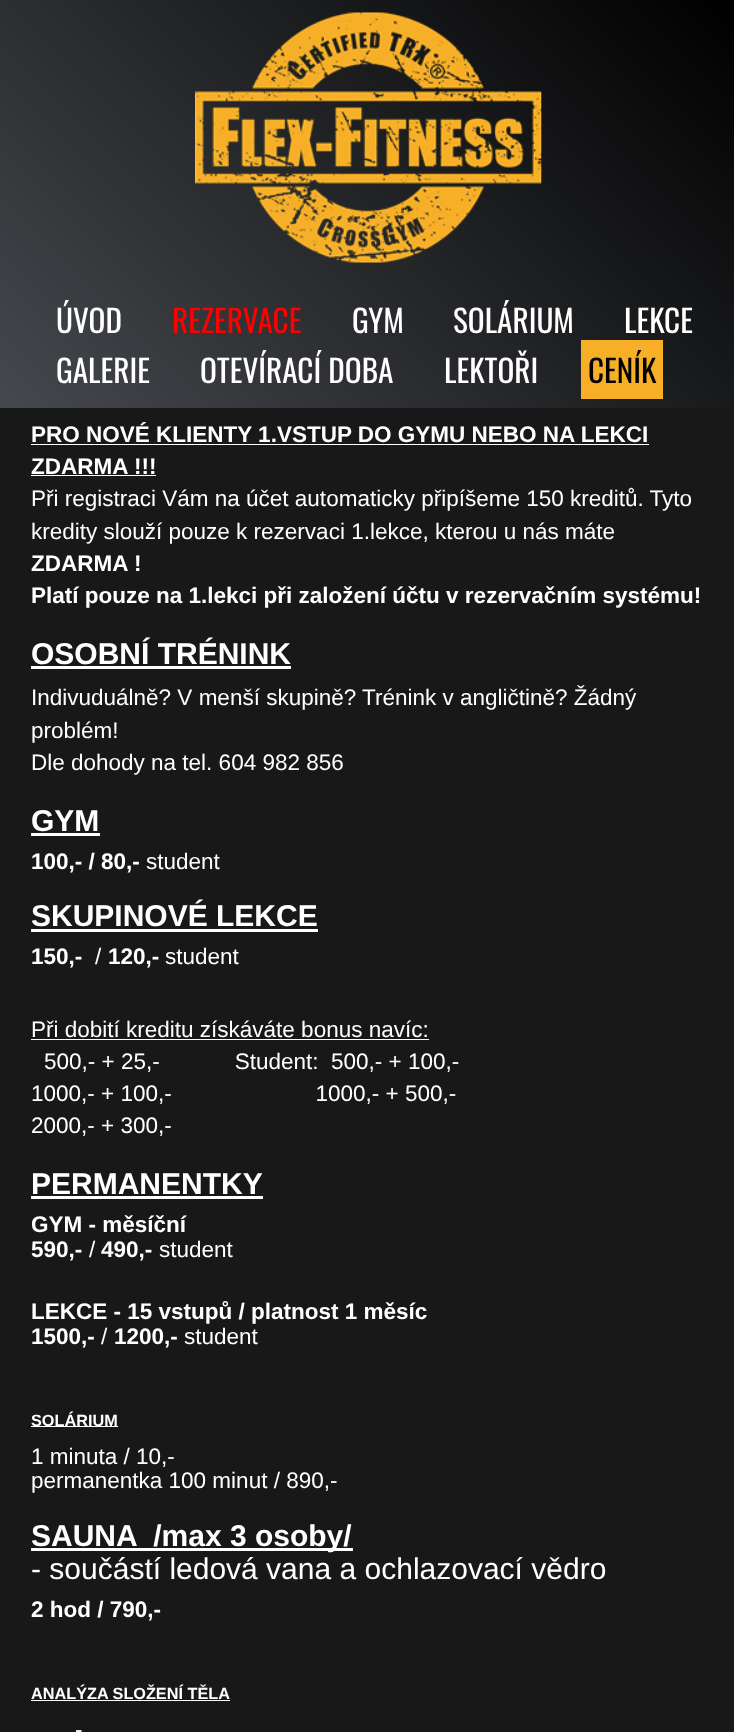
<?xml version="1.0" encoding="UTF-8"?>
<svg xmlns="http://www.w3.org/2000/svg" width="734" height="1732">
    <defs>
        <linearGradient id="g1" gradientUnits="userSpaceOnUse" x1="82" y1="489" x2="653" y2="-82"><stop offset="0" stop-color="#45484D"/><stop offset="1" stop-color="#000000"/></linearGradient>
    </defs>
    <rect width="100%" height="100%" fill="#181818"/>
    <rect x="0" y="0" width="734" height="408" fill="url(#g1)"/>
    <image x="195" y="12" width="347" height="251" href="img_01.png"/>
    <text x="56" y="333" font-family="Oswald" font-size="31.25" fill="#FFFFFF">ÚVOD</text>
    <text x="172" y="333" font-family="Oswald" font-size="31.25" fill="#FF0000">REZERVACE</text>
    <text x="352" y="333" font-family="Oswald" font-size="31.25" fill="#FFFFFF">GYM</text>
    <text x="453" y="333" font-family="Oswald" font-size="31.25" fill="#FFFFFF">SOLÁRIUM</text>
    <text x="624" y="333" font-family="Oswald" font-size="31.25" fill="#FFFFFF">LEKCE</text>
    <text x="56" y="383" font-family="Oswald" font-size="31.25" fill="#FFFFFF">GALERIE</text>
    <text x="200" y="383" font-family="Oswald" font-size="31.25" fill="#FFFFFF">OTEVÍRACÍ DOBA</text>
    <text x="444" y="383" font-family="Oswald" font-size="31.25" fill="#FFFFFF">LEKTOŘI</text>
    <rect x="581" y="340" width="82" height="59" fill="#F7AF28"/>
    <text x="588" y="383" font-family="Oswald" font-size="31.25" fill="#000000">CENÍK</text>
    <text x="31" y="442" font-family="Liberation Sans" font-size="22.5" font-weight="700" fill="#FFFFFF">PRO NOVÉ KLIENTY 1.VSTUP DO GYMU NEBO NA LEKCI</text>
    <rect x="31" y="444" width="618" height="1" fill="#FFFFFF"/>
    <text x="31" y="474" font-family="Liberation Sans" font-size="22.5" font-weight="700" fill="#FFFFFF">ZDARMA !!!</text>
    <rect x="31" y="475" width="125" height="1" fill="#FFFFFF"/>
    <text font-family="Liberation Sans" font-size="22.5" fill="#FFFFFF">
        <tspan x="31" y="506">Při registraci Vám na účet automaticky připíšeme 150 kreditů. Tyto</tspan>
        <tspan x="31" y="539">kredity slouží pouze k rezervaci 1.lekce, kterou u nás máte</tspan>
    </text>
    <text font-family="Liberation Sans" font-size="22.5" font-weight="700" fill="#FFFFFF">
        <tspan x="31" y="571">ZDARMA !</tspan>
        <tspan x="31" y="603">Platí pouze na 1.lekci při založení účtu v rezervačním systému!</tspan>
    </text>
    <text x="31" y="664" font-family="Liberation Sans" font-size="30" font-weight="700" fill="#FFFFFF">OSOBNÍ TRÉNINK</text>
    <rect x="31" y="666" width="260" height="3" fill="#FFFFFF"/>
    <text font-family="Liberation Sans" font-size="22.5" fill="#FFFFFF">
        <tspan x="31" y="705">Indivuduálně? V menší skupině? Trénink v angličtině? Žádný</tspan>
        <tspan x="31" y="738">problém!</tspan>
        <tspan x="31" y="770">Dle dohody na tel. 604 982 856</tspan>
    </text>
    <text x="31" y="831" font-family="Liberation Sans" font-size="30" font-weight="700" fill="#FFFFFF">GYM</text>
    <rect x="31" y="833" width="69" height="3" fill="#FFFFFF"/>
    <text x="31" y="869" font-family="Liberation Sans" font-size="22.5" font-weight="700" fill="#FFFFFF">100,- / 80,-</text>
    <text x="146" y="869" font-family="Liberation Sans" font-size="22.5" fill="#FFFFFF">student</text>
    <text x="31" y="926" font-family="Liberation Sans" font-size="30" font-weight="700" fill="#FFFFFF">SKUPINOVÉ LEKCE</text>
    <rect x="31" y="929" width="287" height="3" fill="#FFFFFF"/>
    <text x="31" y="964" font-family="Liberation Sans" font-size="22.5" font-weight="700" fill="#FFFFFF">150,-</text>
    <text x="95" y="964" font-family="Liberation Sans" font-size="22.5" fill="#FFFFFF">/</text>
    <text x="108" y="964" font-family="Liberation Sans" font-size="22.5" font-weight="700" fill="#FFFFFF">120,-</text>
    <text x="165" y="964" font-family="Liberation Sans" font-size="22.5" fill="#FFFFFF">student</text>
    <text x="31" y="1037" font-family="Liberation Sans" font-size="22.5" fill="#FFFFFF">Při dobití kreditu získáváte bonus navíc:</text>
    <rect x="31" y="1039" width="398" height="1" fill="#FFFFFF"/>
    <text x="44" y="1069" font-family="Liberation Sans" font-size="22.5" fill="#FFFFFF" xml:space="preserve">500,- + 25,-            Student:  500,- + 100,-</text>
    <text font-family="Liberation Sans" font-size="22.5" fill="#FFFFFF" xml:space="preserve"><tspan x="31" y="1101">1000,- + 100,-                       1000,- + 500,-</tspan><tspan x="31" y="1133">2000,- + 300,-</tspan></text>
    <text x="31" y="1194" font-family="Liberation Sans" font-size="30" font-weight="700" fill="#FFFFFF">PERMANENTKY</text>
    <rect x="31" y="1196" width="232" height="3" fill="#FFFFFF"/>
    <text font-family="Liberation Sans" font-size="22.5" font-weight="700" fill="#FFFFFF">
        <tspan x="31" y="1232">GYM - měsíční</tspan>
        <tspan x="31" y="1257">590,-</tspan>
    </text>
    <text x="89" y="1257" font-family="Liberation Sans" font-size="22.5" fill="#FFFFFF">/</text>
    <text x="101" y="1257" font-family="Liberation Sans" font-size="22.5" font-weight="700" fill="#FFFFFF">490,-</text>
    <text x="159" y="1257" font-family="Liberation Sans" font-size="22.5" fill="#FFFFFF">student</text>
    <text font-family="Liberation Sans" font-size="22.5" font-weight="700" fill="#FFFFFF">
        <tspan x="31" y="1319">LEKCE - 15 vstupů / platnost 1 měsíc</tspan>
        <tspan x="31" y="1344">1500,-</tspan>
    </text>
    <text x="101" y="1344" font-family="Liberation Sans" font-size="22.5" fill="#FFFFFF">/</text>
    <text x="114" y="1344" font-family="Liberation Sans" font-size="22.5" font-weight="700" fill="#FFFFFF">1200,-</text>
    <text x="184" y="1344" font-family="Liberation Sans" font-size="22.5" fill="#FFFFFF">student</text>
    <rect x="31" y="1426" width="87" height="1" fill="#FFFFFF"/>
    <text x="31" y="1426" font-family="Liberation Sans" font-size="16.25" font-weight="700" fill="#FFFFFF">SOLÁRIUM</text>
    <text font-family="Liberation Sans" font-size="22.5" fill="#FFFFFF">
        <tspan x="31" y="1464">1 minuta / 10,-</tspan>
        <tspan x="31" y="1488">permanentka 100 minut / 890,-</tspan>
    </text>
    <rect x="31" y="1548" width="322" height="3" fill="#FFFFFF"/>
    <text x="31" y="1546" font-family="Liberation Sans" font-size="30" font-weight="700" fill="#FFFFFF" xml:space="preserve">SAUNA  /max 3 osoby/</text>
    <text x="31" y="1579" font-family="Liberation Sans" font-size="30" fill="#FFFFFF">- součástí ledová vana a ochlazovací vědro</text>
    <text x="31" y="1617" font-family="Liberation Sans" font-size="22.5" font-weight="700" fill="#FFFFFF">2 hod / 790,-</text>
    <text x="31" y="1699" font-family="Liberation Sans" font-size="16.25" font-weight="700" fill="#FFFFFF">ANALÝZA SLOŽENÍ TĚLA</text>
    <rect x="31" y="1700" width="199" height="1" fill="#FFFFFF"/>
    <text x="75" y="1737" font-family="Liberation Sans" font-size="22.5" fill="#FFFFFF">-</text>
</svg>
